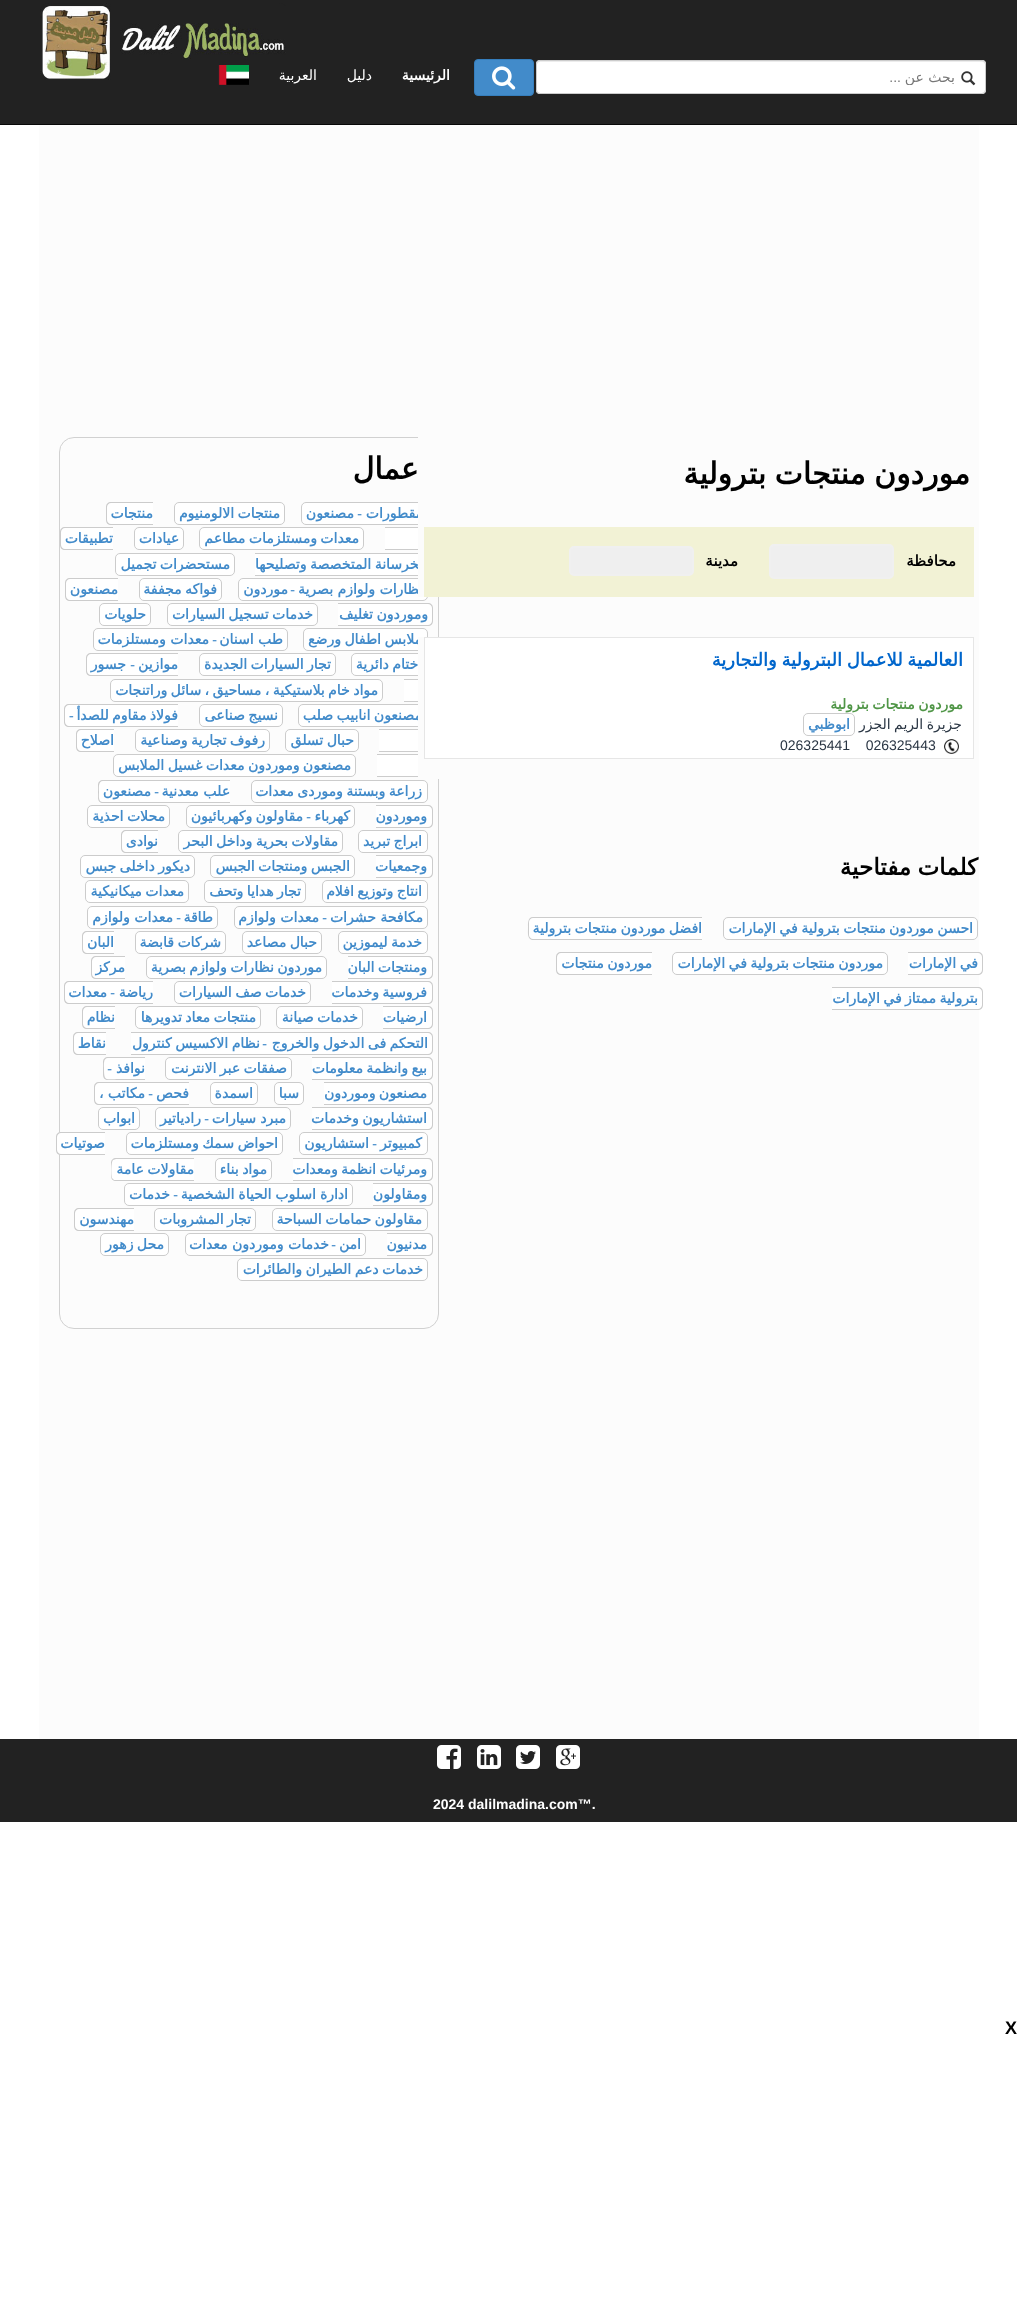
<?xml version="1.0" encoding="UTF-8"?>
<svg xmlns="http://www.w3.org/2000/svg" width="1017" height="2322">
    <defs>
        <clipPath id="clip1"><rect x="549" y="69" width="406" height="16"/></clipPath>
    </defs>
    <rect width="100%" height="100%" fill="#FFFFFF"/>
    <rect x="0" y="0" width="1017" height="124" fill="#222222"/>
    <rect x="0" y="124" width="1017" height="1" fill="#080808"/>
    <rect x="536" y="60" width="450" height="34" rx="4" fill="#FFFFFF"/>
    <path d="M 540 62 H 982 C 984 62 985 63 985 65 C 985 63 984 61 982 61 H 539 L 537 63 V 65 C 537 63 538 62 540 62 Z" fill="#ECECEC"/>
    <rect x="536.5" y="60.5" width="449" height="33" rx="3.5" fill="none" stroke="#CCCCCC"/>
    <image x="961" y="71" width="15" height="15" href="img_01.png"/>
    <g clip-path="url(#clip1)">
        <text x="955" y="82" font-family="DejaVu Sans" font-size="14" direction="rtl" fill="#777777">بحث عن</text>
    </g>
    <text x="901" y="82" font-family="Liberation Sans" font-size="14" direction="rtl" fill="#777777">...</text>
    <rect x="474.5" y="59.5" width="59" height="36" rx="3.5" fill="#428BCA" stroke="#357EBD"/>
    <image x="492" y="66" width="24" height="24" href="img_02.png"/>
    <text x="450" y="80" font-family="DejaVu Sans" font-size="14" font-weight="700" direction="rtl" fill="#FFFFFF">الرئيسية</text>
    <text x="372" y="80" font-family="DejaVu Sans" font-size="14" direction="rtl" fill="#FFFFFF">دليل</text>
    <image x="40" y="3" width="246" height="77" href="img_04.png"/>
    <text x="317" y="80" font-family="DejaVu Sans" font-size="14" direction="rtl" fill="#FFFFFF">العربية</text>
    <image x="218" y="65" width="31" height="20" href="img_03.png"/>
    <rect x="39" y="125" width="940" height="1614" fill="#FCFCFC"/>
    <rect x="59.5" y="437.5" width="379" height="891" rx="14.5" fill="none" stroke="#D1D1D1"/>
    <text x="427" y="479" font-family="DejaVu Sans" font-size="30" font-weight="700" direction="rtl" fill="#000000">اعمال</text>
    <rect x="301.5" y="502.5" width="126" height="22" rx="4.5" fill="#FFFFFF" stroke="#CCCCCC"/>
    <text x="423" y="518" font-family="DejaVu Sans" font-size="14" font-weight="700" direction="rtl" fill="#428BCA">مقطورات</text>
    <rect x="385" y="528" width="33" height="21" fill="#FFFFFF"/>
    <path d="M 385 527 H 428 C 431 527 433 529 433 532 V 545 C 433 548 431 550 428 550 H 385 Z M 385 528 H 428 C 430 528 432 530 432 532 V 545 C 432 547 430 549 428 549 H 385 Z" fill="#CCCCCC" fill-rule="evenodd"/>
    <rect x="255" y="554" width="163" height="21" fill="#FFFFFF"/>
    <path d="M 255 553 H 428 C 431 553 433 555 433 558 V 571 C 433 574 431 576 428 576 H 255 Z M 255 554 H 428 C 430 554 432 556 432 558 V 571 C 432 573 430 575 428 575 H 255 Z" fill="#CCCCCC" fill-rule="evenodd"/>
    <text x="427" y="569" word-spacing="-1" font-family="DejaVu Sans" font-size="14" font-weight="700" direction="rtl" fill="#428BCA">الخرسانة المتخصصة وتصليحها</text>
    <rect x="238.5" y="578.5" width="189" height="22" rx="4.5" fill="#FFFFFF" stroke="#CCCCCC"/>
    <text x="423" y="594" font-family="DejaVu Sans" font-size="14" font-weight="700" direction="rtl" fill="#428BCA">نظارات ولوازم بصرية</text>
    <rect x="418" y="437" width="21" height="160" fill="#FCFCFC"/>
    <text x="970" y="484" word-spacing="-1" font-family="DejaVu Sans" font-size="30" font-weight="700" direction="rtl" fill="#000000">موردون منتجات بترولية</text>
    <rect x="424" y="527" width="550" height="70" fill="#F2F2D5"/>
    <text x="956" y="566" font-family="DejaVu Sans" font-size="15" font-weight="700" direction="rtl" fill="#000000">محافظة</text>
    <rect x="770" y="545" width="123" height="33" rx="4" fill="#EFEFEF" stroke="#F0F0F0" stroke-width="2"/>
    <text x="738" y="566" font-family="DejaVu Sans" font-size="15" font-weight="700" direction="rtl" fill="#000000">مدينة</text>
    <rect x="570" y="547" width="123" height="28" rx="4" fill="#EFEFEF" stroke="#F0F0F0" stroke-width="2"/>
    <rect x="303.5" y="628.5" width="124" height="22" rx="4.5" fill="#FFFFFF" stroke="#CCCCCC"/>
    <text x="422" y="644" word-spacing="-1" font-family="DejaVu Sans" font-size="14" font-weight="700" direction="rtl" fill="#428BCA">ملابس اطفال ورضع</text>
    <rect x="351.5" y="653.5" width="76" height="22" rx="4.5" fill="#FFFFFF" stroke="#CCCCCC"/>
    <text x="422" y="669" word-spacing="-1" font-family="DejaVu Sans" font-size="14" font-weight="700" direction="rtl" fill="#428BCA">اختام دائرية</text>
    <rect x="404" y="680" width="14" height="21" fill="#FFFFFF"/>
    <path d="M 404 679 H 428 C 431 679 433 681 433 684 V 697 C 433 700 431 702 428 702 H 404 Z M 404 680 H 428 C 430 680 432 682 432 684 V 697 C 432 699 430 701 428 701 H 404 Z" fill="#CCCCCC" fill-rule="evenodd"/>
    <rect x="298.5" y="704.5" width="129" height="22" rx="4.5" fill="#FFFFFF" stroke="#CCCCCC"/>
    <text x="422" y="720" word-spacing="-1" font-family="DejaVu Sans" font-size="14" font-weight="700" direction="rtl" fill="#428BCA">مصنعون انابيب صلب</text>
    <rect x="379" y="730" width="39" height="21" fill="#FFFFFF"/>
    <path d="M 379 729 H 428 C 431 729 433 731 433 734 V 747 C 433 750 431 752 428 752 H 379 Z M 379 730 H 428 C 430 730 432 732 432 734 V 747 C 432 749 430 751 428 751 H 379 Z" fill="#CCCCCC" fill-rule="evenodd"/>
    <rect x="377" y="755" width="41" height="21" fill="#FFFFFF"/>
    <path d="M 377 754 H 428 C 431 754 433 756 433 759 V 772 C 433 775 431 777 428 777 H 377 Z M 377 755 H 428 C 430 755 432 757 432 759 V 772 C 432 774 430 776 428 776 H 377 Z" fill="#CCCCCC" fill-rule="evenodd"/>
    <rect x="418" y="637" width="21" height="142" fill="#FCFCFC"/>
    <rect x="424.5" y="637.5" width="549" height="121" fill="#FFFFFF" stroke="#E6E6E6"/>
    <text x="963" y="666" word-spacing="-1" font-family="DejaVu Sans" font-size="18" font-weight="700" direction="rtl" fill="#0066CC">العالمية للاعمال البترولية والتجارية</text>
    <text x="963" y="709" word-spacing="-1" font-family="DejaVu Sans" font-size="14" font-weight="700" direction="rtl" fill="#509647">موردون منتجات بترولية</text>
    <text x="962" y="729" word-spacing="-1" font-family="DejaVu Sans" font-size="14" direction="rtl" fill="#293543">جزيرة الريم الجزر</text>
    <rect x="803.5" y="713.5" width="51" height="22" rx="4.5" fill="none" stroke="#CCCCCC"/>
    <text x="850" y="729" font-family="DejaVu Sans" font-size="14" font-weight="700" direction="rtl" fill="#428BCA">ابوظبي</text>
    <image x="944" y="739" width="15" height="15" href="img_05.png"/>
    <text x="780" y="750" font-family="Liberation Sans" font-size="14" fill="#293543" xml:space="preserve">026325441    026325443</text>
    <text x="978" y="875" word-spacing="-1" font-family="DejaVu Sans" font-size="23" font-weight="700" direction="rtl" fill="#000000">كلمات مفتاحية</text>
    <rect x="723.5" y="917.5" width="254" height="22" rx="4.5" fill="#FFFFFF" stroke="#CCCCCC"/>
    <text x="973" y="933" word-spacing="-1" font-family="DejaVu Sans" font-size="14" font-weight="700" direction="rtl" fill="#428BCA">احسن موردون منتجات بترولية في الإمارات</text>
    <path d="M 533 917 H 702 V 940 H 533 C 530 940 528 938 528 935 V 922 C 528 919 530 917 533 917 Z" fill="#FFFFFF"/>
    <path d="M 533 917 H 702 V 940 H 532 C 527 939 528 932 528 928 C 528 925 527 917 533 917 Z M 533 918 H 702 V 939 H 533 C 531 939 529 937 529 935 V 922 C 529 920 531 918 533 918 Z" fill="#CCCCCC" fill-rule="evenodd"/>
    <text x="702" y="933" word-spacing="-1" font-family="DejaVu Sans" font-size="14" font-weight="700" direction="rtl" fill="#428BCA">افضل موردون منتجات بترولية</text>
    <path d="M 908 952 H 978 C 981 952 983 954 983 957 V 970 C 983 973 981 975 978 975 H 908 Z" fill="#FFFFFF"/>
    <path d="M 908 952 H 978 C 981 952 983 954 983 957 V 970 C 983 973 981 975 978 975 H 908 Z M 908 953 H 978 C 980 953 982 955 982 957 V 970 C 982 972 980 974 978 974 H 908 Z" fill="#CCCCCC" fill-rule="evenodd"/>
    <text x="978" y="968" word-spacing="-1" font-family="DejaVu Sans" font-size="14" font-weight="700" direction="rtl" fill="#428BCA">في الإمارات</text>
    <rect x="672.5" y="952.5" width="215" height="22" rx="4.5" fill="#FFFFFF" stroke="#CCCCCC"/>
    <text x="883" y="968" word-spacing="-1" font-family="DejaVu Sans" font-size="14" font-weight="700" direction="rtl" fill="#428BCA">موردون منتجات بترولية في الإمارات</text>
    <path d="M 561 952 H 652 V 975 H 561 C 558 975 556 973 556 970 V 957 C 556 954 558 952 561 952 Z" fill="#FFFFFF"/>
    <path d="M 561 952 H 652 V 975 H 561 C 558 975 556 973 556 970 V 957 C 556 954 558 952 561 952 Z M 561 953 H 652 V 974 H 561 C 559 974 557 972 557 970 V 957 C 557 955 559 953 561 953 Z" fill="#CCCCCC" fill-rule="evenodd"/>
    <text x="652" y="968" word-spacing="-1" font-family="DejaVu Sans" font-size="14" font-weight="700" direction="rtl" fill="#428BCA">موردون منتجات</text>
    <path d="M 832 987 H 978 C 981 987 983 989 983 992 V 1005 C 983 1008 981 1010 978 1010 H 832 Z" fill="#FFFFFF"/>
    <path d="M 832 987 H 978 C 981 987 983 989 983 992 V 1005 C 983 1008 981 1010 978 1010 H 832 Z M 832 988 H 978 C 980 988 982 990 982 992 V 1005 C 982 1007 980 1009 978 1009 H 832 Z" fill="#CCCCCC" fill-rule="evenodd"/>
    <text x="978" y="1003" word-spacing="-1" font-family="DejaVu Sans" font-size="14" font-weight="700" direction="rtl" fill="#428BCA">بترولية ممتاز في الإمارات</text>
    <text x="362" y="518" font-family="Liberation Serif" font-size="14" font-weight="700" direction="rtl" fill="#428BCA">-</text>
    <text x="354" y="518" font-family="DejaVu Sans" font-size="14" font-weight="700" direction="rtl" fill="#428BCA">مصنعون</text>
    <rect x="174.5" y="502.5" width="110" height="22" rx="4.5" fill="#FFFFFF" stroke="#CCCCCC"/>
    <text x="280" y="518" word-spacing="-1" font-family="DejaVu Sans" font-size="14" font-weight="700" direction="rtl" fill="#428BCA">منتجات الالومنيوم</text>
    <path d="M 111 502 H 153 V 525 H 111 C 108 525 106 523 106 520 V 507 C 106 504 108 502 111 502 Z" fill="#FFFFFF"/>
    <path d="M 111 502 H 153 V 525 H 111 C 108 525 106 523 106 520 V 507 C 106 504 108 502 111 502 Z M 111 503 H 153 V 524 H 111 C 109 524 107 522 107 520 V 507 C 107 505 109 503 111 503 Z" fill="#CCCCCC" fill-rule="evenodd"/>
    <text x="153" y="518" font-family="DejaVu Sans" font-size="14" font-weight="700" direction="rtl" fill="#428BCA">منتجات</text>
    <rect x="199.5" y="527.5" width="164" height="22" rx="4.5" fill="#FFFFFF" stroke="#CCCCCC"/>
    <text x="359" y="543" font-family="DejaVu Sans" font-size="14" font-weight="700" direction="rtl" fill="#428BCA">معدات</text>
    <text x="317" y="543" word-spacing="-1" font-family="DejaVu Sans" font-size="14" font-weight="700" direction="rtl" fill="#428BCA">ومستلزمات مطاعم</text>
    <rect x="134.5" y="527.5" width="49" height="22" rx="4.5" fill="#FFFFFF" stroke="#CCCCCC"/>
    <text x="179" y="543" font-family="DejaVu Sans" font-size="14" font-weight="700" direction="rtl" fill="#428BCA">عيادات</text>
    <path d="M 65 527 H 113 V 550 H 65 C 62 550 60 548 60 545 V 532 C 60 529 62 527 65 527 Z" fill="#FFFFFF"/>
    <path d="M 65 527 H 113 V 550 H 65 C 62 550 60 548 60 545 V 532 C 60 529 62 527 65 527 Z M 65 528 H 113 V 549 H 65 C 63 549 61 547 61 545 V 532 C 61 530 63 528 65 528 Z" fill="#CCCCCC" fill-rule="evenodd"/>
    <text x="113" y="543" font-family="DejaVu Sans" font-size="14" font-weight="700" direction="rtl" fill="#428BCA">تطبيقات</text>
    <rect x="115.5" y="553.5" width="119" height="22" rx="4.5" fill="#FFFFFF" stroke="#CCCCCC"/>
    <text x="230" y="569" word-spacing="-1" font-family="DejaVu Sans" font-size="14" font-weight="700" direction="rtl" fill="#428BCA">مستحضرات تجميل</text>
    <text x="295" y="594" font-family="Liberation Serif" font-size="14" font-weight="700" direction="rtl" fill="#428BCA">-</text>
    <text x="288" y="594" font-family="DejaVu Sans" font-size="14" font-weight="700" direction="rtl" fill="#428BCA">موردون</text>
    <rect x="139.5" y="578.5" width="82" height="22" rx="4.5" fill="#FFFFFF" stroke="#CCCCCC"/>
    <text x="217" y="594" word-spacing="-1" font-family="DejaVu Sans" font-size="14" font-weight="700" direction="rtl" fill="#428BCA">فواكه مجففة</text>
    <path d="M 70 578 H 118 V 601 H 70 C 67 601 65 599 65 596 V 583 C 65 580 67 578 70 578 Z" fill="#FFFFFF"/>
    <path d="M 70 578 H 118 V 601 H 70 C 67 601 65 599 65 596 V 583 C 65 580 67 578 70 578 Z M 70 579 H 118 V 600 H 70 C 68 600 66 598 66 596 V 583 C 66 581 68 579 70 579 Z" fill="#CCCCCC" fill-rule="evenodd"/>
    <text x="118" y="594" font-family="DejaVu Sans" font-size="14" font-weight="700" direction="rtl" fill="#428BCA">مصنعون</text>
    <path d="M 338 603 H 428 C 431 603 433 605 433 608 V 621 C 433 624 431 626 428 626 H 338 Z" fill="#FFFFFF"/>
    <path d="M 338 603 H 428 C 431 603 433 605 433 608 V 621 C 433 624 431 626 428 626 H 338 Z M 338 604 H 428 C 430 604 432 606 432 608 V 621 C 432 623 430 625 428 625 H 338 Z" fill="#CCCCCC" fill-rule="evenodd"/>
    <text x="428" y="619" word-spacing="-1" font-family="DejaVu Sans" font-size="14" font-weight="700" direction="rtl" fill="#428BCA">وموردون تغليف</text>
    <rect x="167.5" y="603.5" width="150" height="22" rx="4.5" fill="#FFFFFF" stroke="#CCCCCC"/>
    <text x="313" y="619" word-spacing="-1" font-family="DejaVu Sans" font-size="14" font-weight="700" direction="rtl" fill="#428BCA">خدمات تسجيل السيارات</text>
    <rect x="99.5" y="603.5" width="51" height="22" rx="4.5" fill="#FFFFFF" stroke="#CCCCCC"/>
    <text x="146" y="619" font-family="DejaVu Sans" font-size="14" font-weight="700" direction="rtl" fill="#428BCA">حلويات</text>
    <rect x="93.5" y="628.5" width="194" height="22" rx="4.5" fill="#FFFFFF" stroke="#CCCCCC"/>
    <text x="283" y="644" font-family="DejaVu Sans" font-size="14" font-weight="700" direction="rtl" fill="#428BCA">طب اسنان</text>
    <text x="217" y="644" font-family="Liberation Serif" font-size="14" font-weight="700" direction="rtl" fill="#428BCA">-</text>
    <text x="209" y="644" font-family="DejaVu Sans" font-size="14" font-weight="700" direction="rtl" fill="#428BCA">معدات ومستلزمات</text>
    <rect x="199.5" y="653.5" width="136" height="22" rx="4.5" fill="#FFFFFF" stroke="#CCCCCC"/>
    <text x="331" y="669" word-spacing="-1" font-family="DejaVu Sans" font-size="14" font-weight="700" direction="rtl" fill="#428BCA">تجار السيارات الجديدة</text>
    <path d="M 91 653 H 178 V 676 H 91 C 88 676 86 674 86 671 V 658 C 86 655 88 653 91 653 Z" fill="#FFFFFF"/>
    <path d="M 91 653 H 178 V 676 H 91 C 88 676 86 674 86 671 V 658 C 86 655 88 653 91 653 Z M 91 654 H 178 V 675 H 91 C 89 675 87 673 87 671 V 658 C 87 656 89 654 91 654 Z" fill="#CCCCCC" fill-rule="evenodd"/>
    <text x="178" y="669" font-family="DejaVu Sans" font-size="14" font-weight="700" direction="rtl" fill="#428BCA">موازين</text>
    <text x="135" y="669" font-family="Liberation Serif" font-size="14" font-weight="700" direction="rtl" fill="#428BCA">-</text>
    <text x="126" y="669" font-family="DejaVu Sans" font-size="14" font-weight="700" direction="rtl" fill="#428BCA">جسور</text>
    <rect x="110.5" y="679.5" width="272" height="22" rx="4.5" fill="#FFFFFF" stroke="#CCCCCC"/>
    <text x="378" y="695" word-spacing="-1" font-family="DejaVu Sans" font-size="14" font-weight="700" direction="rtl" fill="#428BCA">مواد خام بلاستيكية ، مساحيق ، سائل وراتنجات</text>
    <rect x="199.5" y="704.5" width="83" height="22" rx="4.5" fill="#FFFFFF" stroke="#CCCCCC"/>
    <text x="278" y="720" word-spacing="-1" font-family="DejaVu Sans" font-size="14" font-weight="700" direction="rtl" fill="#428BCA">نسيج صناعى</text>
    <path d="M 69 704 H 178 V 727 H 69 C 66 727 64 725 64 722 V 709 C 64 706 66 704 69 704 Z" fill="#FFFFFF"/>
    <path d="M 69 704 H 178 V 727 H 69 C 66 727 64 725 64 722 V 709 C 64 706 66 704 69 704 Z M 69 705 H 178 V 726 H 69 C 67 726 65 724 65 722 V 709 C 65 707 67 705 69 705 Z" fill="#CCCCCC" fill-rule="evenodd"/>
    <text x="178" y="720" word-spacing="-1" font-family="DejaVu Sans" font-size="14" font-weight="700" direction="rtl" fill="#428BCA">فولاذ مقاوم للصدأ</text>
    <text x="69" y="720" font-family="Liberation Serif" font-size="14" font-weight="700" fill="#428BCA">-</text>
    <rect x="285.5" y="729.5" width="73" height="22" rx="4.5" fill="#FFFFFF" stroke="#CCCCCC"/>
    <text x="354" y="745" word-spacing="-1" font-family="DejaVu Sans" font-size="14" font-weight="700" direction="rtl" fill="#428BCA">حبال تسلق</text>
    <rect x="135.5" y="729.5" width="134" height="22" rx="4.5" fill="#FFFFFF" stroke="#CCCCCC"/>
    <text x="265" y="745" word-spacing="-1" font-family="DejaVu Sans" font-size="14" font-weight="700" direction="rtl" fill="#428BCA">رفوف تجارية وصناعية</text>
    <path d="M 81 729 H 114 V 752 H 81 C 78 752 76 750 76 747 V 734 C 76 731 78 729 81 729 Z" fill="#FFFFFF"/>
    <path d="M 81 729 H 114 V 752 H 81 C 78 752 76 750 76 747 V 734 C 76 731 78 729 81 729 Z M 81 730 H 114 V 751 H 81 C 79 751 77 749 77 747 V 734 C 77 732 79 730 81 730 Z" fill="#CCCCCC" fill-rule="evenodd"/>
    <text x="114" y="745" font-family="DejaVu Sans" font-size="14" font-weight="700" direction="rtl" fill="#428BCA">اصلاح</text>
    <rect x="113.5" y="754.5" width="242" height="22" rx="4.5" fill="#FFFFFF" stroke="#CCCCCC"/>
    <text x="351" y="770" word-spacing="-1" font-family="DejaVu Sans" font-size="14" font-weight="700" direction="rtl" fill="#428BCA">مصنعون وموردون معدات غسيل الملابس</text>
    <rect x="251.5" y="780.5" width="176" height="22" rx="4.5" fill="#FFFFFF" stroke="#CCCCCC"/>
    <text x="422" y="796" word-spacing="-1" font-family="DejaVu Sans" font-size="14" font-weight="700" direction="rtl" fill="#428BCA">زراعة وبستنة وموردى معدات</text>
    <path d="M 103 780 H 230 V 803 H 103 C 100 803 98 801 98 798 V 785 C 98 782 100 780 103 780 Z" fill="#FFFFFF"/>
    <path d="M 103 780 H 230 V 803 H 103 C 100 803 98 801 98 798 V 785 C 98 782 100 780 103 780 Z M 103 781 H 230 V 802 H 102 C 98 801 99 795 99 792 C 99 788 98 781 103 781 Z" fill="#CCCCCC" fill-rule="evenodd"/>
    <text x="230" y="796" font-family="DejaVu Sans" font-size="14" font-weight="700" direction="rtl" fill="#428BCA">علب معدنية</text>
    <text x="159" y="796" font-family="Liberation Serif" font-size="14" font-weight="700" direction="rtl" fill="#428BCA">-</text>
    <text x="151" y="796" font-family="DejaVu Sans" font-size="14" font-weight="700" direction="rtl" fill="#428BCA">مصنعون</text>
    <path d="M 376 805 H 428 C 431 805 433 807 433 810 V 823 C 433 826 431 828 428 828 H 376 Z" fill="#FFFFFF"/>
    <path d="M 376 805 H 428 C 431 805 433 807 433 810 V 823 C 433 826 431 828 428 828 H 376 Z M 376 806 H 428 C 430 806 432 808 432 810 V 823 C 432 825 430 827 428 827 H 376 Z" fill="#CCCCCC" fill-rule="evenodd"/>
    <text x="427" y="821" font-family="DejaVu Sans" font-size="14" font-weight="700" direction="rtl" fill="#428BCA">وموردون</text>
    <rect x="186.5" y="805.5" width="168" height="22" rx="4.5" fill="#FFFFFF" stroke="#CCCCCC"/>
    <text x="350" y="821" font-family="DejaVu Sans" font-size="14" font-weight="700" direction="rtl" fill="#428BCA">كهرباء</text>
    <text x="311" y="821" font-family="Liberation Serif" font-size="14" font-weight="700" direction="rtl" fill="#428BCA">-</text>
    <text x="303" y="821" word-spacing="-1" font-family="DejaVu Sans" font-size="14" font-weight="700" direction="rtl" fill="#428BCA">مقاولون وكهربائيون</text>
    <rect x="87.5" y="805.5" width="82" height="22" rx="4.5" fill="#FFFFFF" stroke="#CCCCCC"/>
    <text x="165" y="821" word-spacing="-1" font-family="DejaVu Sans" font-size="14" font-weight="700" direction="rtl" fill="#428BCA">محلات احذية</text>
    <rect x="358.5" y="830.5" width="69" height="22" rx="4.5" fill="#FFFFFF" stroke="#CCCCCC"/>
    <text x="422" y="846" word-spacing="-1" font-family="DejaVu Sans" font-size="14" font-weight="700" direction="rtl" fill="#428BCA">ابراج تبريد</text>
    <rect x="178.5" y="830.5" width="164" height="22" rx="4.5" fill="#FFFFFF" stroke="#CCCCCC"/>
    <text x="338" y="846" word-spacing="-1" font-family="DejaVu Sans" font-size="14" font-weight="700" direction="rtl" fill="#428BCA">مقاولات بحرية وداخل البحر</text>
    <path d="M 126 830 H 158 V 853 H 126 C 123 853 121 851 121 848 V 835 C 121 832 123 830 126 830 Z" fill="#FFFFFF"/>
    <path d="M 126 830 H 158 V 853 H 126 C 123 853 121 851 121 848 V 835 C 121 832 123 830 126 830 Z M 126 831 H 158 V 852 H 126 C 124 852 122 850 122 848 V 835 C 122 833 124 831 126 831 Z" fill="#CCCCCC" fill-rule="evenodd"/>
    <text x="158" y="846" font-family="DejaVu Sans" font-size="14" font-weight="700" direction="rtl" fill="#428BCA">نوادى</text>
    <path d="M 376 855 H 428 C 431 855 433 857 433 860 V 873 C 433 876 431 878 428 878 H 376 Z" fill="#FFFFFF"/>
    <path d="M 376 855 H 428 C 431 855 433 857 433 860 V 873 C 433 876 431 878 428 878 H 376 Z M 376 856 H 428 C 430 856 432 858 432 860 V 873 C 432 875 430 877 428 877 H 376 Z" fill="#CCCCCC" fill-rule="evenodd"/>
    <text x="427" y="871" font-family="DejaVu Sans" font-size="14" font-weight="700" direction="rtl" fill="#428BCA">وجمعيات</text>
    <rect x="210.5" y="855.5" width="144" height="22" rx="4.5" fill="#FFFFFF" stroke="#CCCCCC"/>
    <text x="350" y="871" word-spacing="-1" font-family="DejaVu Sans" font-size="14" font-weight="700" direction="rtl" fill="#428BCA">الجبس ومنتجات الجبس</text>
    <rect x="80.5" y="855.5" width="114" height="22" rx="4.5" fill="#FFFFFF" stroke="#CCCCCC"/>
    <text x="190" y="871" word-spacing="-1" font-family="DejaVu Sans" font-size="14" font-weight="700" direction="rtl" fill="#428BCA">ديكور داخلى جبس</text>
    <rect x="322.5" y="880.5" width="105" height="22" rx="4.5" fill="#FFFFFF" stroke="#CCCCCC"/>
    <text x="422" y="896" word-spacing="-1" font-family="DejaVu Sans" font-size="14" font-weight="700" direction="rtl" fill="#428BCA">انتاج وتوزيع افلام</text>
    <rect x="204.5" y="880.5" width="101" height="22" rx="4.5" fill="#FFFFFF" stroke="#CCCCCC"/>
    <text x="301" y="896" word-spacing="-1" font-family="DejaVu Sans" font-size="14" font-weight="700" direction="rtl" fill="#428BCA">تجار هدايا وتحف</text>
    <rect x="85.5" y="880.5" width="103" height="22" rx="4.5" fill="#FFFFFF" stroke="#CCCCCC"/>
    <text x="184" y="896" word-spacing="-1" font-family="DejaVu Sans" font-size="14" font-weight="700" direction="rtl" fill="#428BCA">معدات ميكانيكية</text>
    <rect x="234.5" y="906.5" width="193" height="22" rx="4.5" fill="#FFFFFF" stroke="#CCCCCC"/>
    <text x="423" y="922" font-family="DejaVu Sans" font-size="14" font-weight="700" direction="rtl" fill="#428BCA">مكافحة حشرات</text>
    <text x="327" y="922" font-family="Liberation Serif" font-size="14" font-weight="700" direction="rtl" fill="#428BCA">-</text>
    <text x="319" y="922" font-family="DejaVu Sans" font-size="14" font-weight="700" direction="rtl" fill="#428BCA">معدات ولوازم</text>
    <rect x="87.5" y="906.5" width="130" height="22" rx="4.5" fill="#FFFFFF" stroke="#CCCCCC"/>
    <text x="213" y="922" font-family="DejaVu Sans" font-size="14" font-weight="700" direction="rtl" fill="#428BCA">طاقة</text>
    <text x="181" y="922" font-family="Liberation Serif" font-size="14" font-weight="700" direction="rtl" fill="#428BCA">-</text>
    <text x="173" y="922" font-family="DejaVu Sans" font-size="14" font-weight="700" direction="rtl" fill="#428BCA">معدات ولوازم</text>
    <rect x="338.5" y="931.5" width="89" height="22" rx="4.5" fill="#FFFFFF" stroke="#CCCCCC"/>
    <text x="422" y="947" word-spacing="-1" font-family="DejaVu Sans" font-size="14" font-weight="700" direction="rtl" fill="#428BCA">خدمة ليموزين</text>
    <rect x="242.5" y="931.5" width="79" height="22" rx="4.5" fill="#FFFFFF" stroke="#CCCCCC"/>
    <text x="317" y="947" word-spacing="-1" font-family="DejaVu Sans" font-size="14" font-weight="700" direction="rtl" fill="#428BCA">حبال مصاعد</text>
    <rect x="135.5" y="931.5" width="90" height="22" rx="4.5" fill="#FFFFFF" stroke="#CCCCCC"/>
    <text x="221" y="947" word-spacing="-1" font-family="DejaVu Sans" font-size="14" font-weight="700" direction="rtl" fill="#428BCA">شركات قابضة</text>
    <path d="M 87 931 H 114 V 954 H 87 C 84 954 82 952 82 949 V 936 C 82 933 84 931 87 931 Z" fill="#FFFFFF"/>
    <path d="M 87 931 H 114 V 954 H 87 C 84 954 82 952 82 949 V 936 C 82 933 84 931 87 931 Z M 87 932 H 114 V 953 H 87 C 85 953 83 951 83 949 V 936 C 83 934 85 932 87 932 Z" fill="#CCCCCC" fill-rule="evenodd"/>
    <text x="114" y="947" font-family="DejaVu Sans" font-size="14" font-weight="700" direction="rtl" fill="#428BCA">البان</text>
    <path d="M 348 956 H 428 C 431 956 433 958 433 961 V 974 C 433 977 431 979 428 979 H 348 Z" fill="#FFFFFF"/>
    <path d="M 348 956 H 428 C 431 956 433 958 433 961 V 974 C 433 977 431 979 428 979 H 348 Z M 348 957 H 428 C 430 957 432 959 432 961 V 974 C 432 976 430 978 428 978 H 348 Z" fill="#CCCCCC" fill-rule="evenodd"/>
    <text x="427" y="972" word-spacing="-1" font-family="DejaVu Sans" font-size="14" font-weight="700" direction="rtl" fill="#428BCA">ومنتجات البان</text>
    <rect x="146.5" y="956.5" width="180" height="22" rx="4.5" fill="#FFFFFF" stroke="#CCCCCC"/>
    <text x="322" y="972" word-spacing="-1" font-family="DejaVu Sans" font-size="14" font-weight="700" direction="rtl" fill="#428BCA">موردون نظارات ولوازم بصرية</text>
    <path d="M 96 956 H 125 V 979 H 96 C 93 979 91 977 91 974 V 961 C 91 958 93 956 96 956 Z" fill="#FFFFFF"/>
    <path d="M 96 956 H 125 V 979 H 96 C 93 979 91 977 91 974 V 961 C 91 958 93 956 96 956 Z M 96 957 H 125 V 978 H 96 C 94 978 92 976 92 974 V 961 C 92 959 94 957 96 957 Z" fill="#CCCCCC" fill-rule="evenodd"/>
    <text x="125" y="972" font-family="DejaVu Sans" font-size="14" font-weight="700" direction="rtl" fill="#428BCA">مركز</text>
    <path d="M 332 981 H 428 C 431 981 433 983 433 986 V 999 C 433 1002 431 1004 428 1004 H 332 Z" fill="#FFFFFF"/>
    <path d="M 332 981 H 428 C 431 981 433 983 433 986 V 999 C 433 1002 431 1004 428 1004 H 332 Z M 332 982 H 428 C 430 982 432 984 432 986 V 999 C 432 1001 430 1003 428 1003 H 332 Z" fill="#CCCCCC" fill-rule="evenodd"/>
    <text x="427" y="997" word-spacing="-1" font-family="DejaVu Sans" font-size="14" font-weight="700" direction="rtl" fill="#428BCA">فروسية وخدمات</text>
    <rect x="174.5" y="981.5" width="136" height="22" rx="4.5" fill="#FFFFFF" stroke="#CCCCCC"/>
    <text x="306" y="997" word-spacing="-1" font-family="DejaVu Sans" font-size="14" font-weight="700" direction="rtl" fill="#428BCA">خدمات صف السيارات</text>
    <path d="M 69 981 H 153 V 1004 H 69 C 66 1004 64 1002 64 999 V 986 C 64 983 66 981 69 981 Z" fill="#FFFFFF"/>
    <path d="M 69 981 H 153 V 1004 H 69 C 66 1004 64 1002 64 999 V 986 C 64 983 66 981 69 981 Z M 69 982 H 153 V 1003 H 69 C 67 1003 65 1001 65 999 V 986 C 65 984 67 982 69 982 Z" fill="#CCCCCC" fill-rule="evenodd"/>
    <text x="153" y="997" font-family="DejaVu Sans" font-size="14" font-weight="700" direction="rtl" fill="#428BCA">رياضة</text>
    <text x="115" y="997" font-family="Liberation Serif" font-size="14" font-weight="700" direction="rtl" fill="#428BCA">-</text>
    <text x="107" y="997" font-family="DejaVu Sans" font-size="14" font-weight="700" direction="rtl" fill="#428BCA">معدات</text>
    <path d="M 383 1006 H 428 C 431 1006 433 1008 433 1011 V 1024 C 433 1027 431 1029 428 1029 H 383 Z" fill="#FFFFFF"/>
    <path d="M 383 1006 H 428 C 431 1006 433 1008 433 1011 V 1024 C 433 1027 431 1029 428 1029 H 383 Z M 383 1007 H 428 C 430 1007 432 1009 432 1011 V 1024 C 432 1026 430 1028 428 1028 H 383 Z" fill="#CCCCCC" fill-rule="evenodd"/>
    <text x="427" y="1022" font-family="DejaVu Sans" font-size="14" font-weight="700" direction="rtl" fill="#428BCA">ارضيات</text>
    <rect x="276.5" y="1006.5" width="86" height="22" rx="4.5" fill="#FFFFFF" stroke="#CCCCCC"/>
    <text x="358" y="1022" word-spacing="-1" font-family="DejaVu Sans" font-size="14" font-weight="700" direction="rtl" fill="#428BCA">خدمات صيانة</text>
    <rect x="135.5" y="1006.5" width="125" height="22" rx="4.5" fill="#FFFFFF" stroke="#CCCCCC"/>
    <text x="256" y="1022" word-spacing="-1" font-family="DejaVu Sans" font-size="14" font-weight="700" direction="rtl" fill="#428BCA">منتجات معاد تدويرها</text>
    <path d="M 87 1006 H 115 V 1029 H 87 C 84 1029 82 1027 82 1024 V 1011 C 82 1008 84 1006 87 1006 Z" fill="#FFFFFF"/>
    <path d="M 87 1006 H 115 V 1029 H 87 C 84 1029 82 1027 82 1024 V 1011 C 82 1008 84 1006 87 1006 Z M 87 1007 H 115 V 1028 H 87 C 85 1028 83 1026 83 1024 V 1011 C 83 1009 85 1007 87 1007 Z" fill="#CCCCCC" fill-rule="evenodd"/>
    <text x="115" y="1022" font-family="DejaVu Sans" font-size="14" font-weight="700" direction="rtl" fill="#428BCA">نظام</text>
    <path d="M 131 1032 H 428 C 431 1032 433 1034 433 1037 V 1050 C 433 1053 431 1055 428 1055 H 131 Z" fill="#FFFFFF"/>
    <path d="M 131 1032 H 428 C 431 1032 433 1034 433 1037 V 1050 C 433 1053 431 1055 428 1055 H 131 Z M 131 1033 H 428 C 430 1033 432 1035 432 1037 V 1050 C 432 1052 430 1054 428 1054 H 131 Z" fill="#CCCCCC" fill-rule="evenodd"/>
    <text x="428" y="1048" word-spacing="-1" font-family="DejaVu Sans" font-size="14" font-weight="700" direction="rtl" fill="#428BCA">التحكم فى الدخول والخروج</text>
    <text x="267" y="1048" font-family="Liberation Serif" font-size="14" font-weight="700" direction="rtl" fill="#428BCA">-</text>
    <text x="260" y="1048" word-spacing="-1" font-family="DejaVu Sans" font-size="14" font-weight="700" direction="rtl" fill="#428BCA">نظام الاكسيس كنترول</text>
    <path d="M 78 1032 H 106 V 1055 H 78 C 75 1055 73 1053 73 1050 V 1037 C 73 1034 75 1032 78 1032 Z" fill="#FFFFFF"/>
    <path d="M 78 1032 H 106 V 1055 H 78 C 75 1055 73 1053 73 1050 V 1037 C 73 1034 75 1032 78 1032 Z M 78 1033 H 106 V 1054 H 78 C 76 1054 74 1052 74 1050 V 1037 C 74 1035 76 1033 78 1033 Z" fill="#CCCCCC" fill-rule="evenodd"/>
    <text x="106" y="1048" font-family="DejaVu Sans" font-size="14" font-weight="700" direction="rtl" fill="#428BCA">نقاط</text>
    <path d="M 312 1057 H 428 C 431 1057 433 1059 433 1062 V 1075 C 433 1078 431 1080 428 1080 H 312 Z" fill="#FFFFFF"/>
    <path d="M 312 1057 H 428 C 431 1057 433 1059 433 1062 V 1075 C 433 1078 431 1080 428 1080 H 312 Z M 312 1058 H 428 C 430 1058 432 1060 432 1062 V 1075 C 432 1077 430 1079 428 1079 H 312 Z" fill="#CCCCCC" fill-rule="evenodd"/>
    <text x="427" y="1073" word-spacing="-1" font-family="DejaVu Sans" font-size="14" font-weight="700" direction="rtl" fill="#428BCA">بيع وانظمة معلومات</text>
    <rect x="165.5" y="1057.5" width="126" height="22" rx="4.5" fill="#FFFFFF" stroke="#CCCCCC"/>
    <text x="287" y="1073" word-spacing="-1" font-family="DejaVu Sans" font-size="14" font-weight="700" direction="rtl" fill="#428BCA">صفقات عبر الانترنت</text>
    <path d="M 108 1057 H 145 V 1080 H 108 C 105 1080 103 1078 103 1075 V 1062 C 103 1059 105 1057 108 1057 Z" fill="#FFFFFF"/>
    <path d="M 108 1057 H 145 V 1080 H 108 C 105 1080 103 1078 103 1075 V 1062 C 103 1059 105 1057 108 1057 Z M 108 1058 H 145 V 1079 H 120 C 105 1079 104 1082 104 1068 C 104 1065 103 1058 108 1058 Z" fill="#CCCCCC" fill-rule="evenodd"/>
    <text x="145" y="1073" font-family="DejaVu Sans" font-size="14" font-weight="700" direction="rtl" fill="#428BCA">نوافذ</text>
    <text x="112" y="1073" font-family="Liberation Serif" font-size="14" font-weight="700" direction="rtl" fill="#428BCA">-</text>
    <path d="M 324 1082 H 428 C 431 1082 433 1084 433 1087 V 1100 C 433 1103 431 1105 428 1105 H 324 Z" fill="#FFFFFF"/>
    <path d="M 324 1082 H 428 C 431 1082 433 1084 433 1087 V 1100 C 433 1103 431 1105 428 1105 H 324 Z M 324 1083 H 428 C 430 1083 432 1085 432 1087 V 1100 C 432 1102 430 1104 428 1104 H 324 Z" fill="#CCCCCC" fill-rule="evenodd"/>
    <text x="427" y="1098" word-spacing="-1" font-family="DejaVu Sans" font-size="14" font-weight="700" direction="rtl" fill="#428BCA">مصنعون وموردون</text>
    <rect x="274.5" y="1082.5" width="29" height="22" rx="4.5" fill="#FFFFFF" stroke="#CCCCCC"/>
    <text x="299" y="1098" font-family="DejaVu Sans" font-size="14" font-weight="700" direction="rtl" fill="#428BCA">سبا</text>
    <rect x="210.5" y="1082.5" width="47" height="22" rx="4.5" fill="#FFFFFF" stroke="#CCCCCC"/>
    <text x="253" y="1098" font-family="DejaVu Sans" font-size="14" font-weight="700" direction="rtl" fill="#428BCA">اسمدة</text>
    <path d="M 99 1082 H 189 V 1105 H 99 C 96 1105 94 1103 94 1100 V 1087 C 94 1084 96 1082 99 1082 Z" fill="#FFFFFF"/>
    <path d="M 99 1082 H 189 V 1105 H 99 C 96 1105 94 1103 94 1100 V 1087 C 94 1084 96 1082 99 1082 Z M 99 1083 H 189 V 1104 H 99 C 97 1104 95 1102 95 1100 V 1087 C 95 1085 97 1083 99 1083 Z" fill="#CCCCCC" fill-rule="evenodd"/>
    <text x="189" y="1098" font-family="DejaVu Sans" font-size="14" font-weight="700" direction="rtl" fill="#428BCA">فحص</text>
    <text x="153" y="1098" font-family="Liberation Serif" font-size="14" font-weight="700" direction="rtl" fill="#428BCA">-</text>
    <text x="145" y="1098" font-family="DejaVu Sans" font-size="14" font-weight="700" direction="rtl" fill="#428BCA">مكاتب ،</text>
    <path d="M 312 1107 H 428 C 431 1107 433 1109 433 1112 V 1125 C 433 1128 431 1130 428 1130 H 312 Z" fill="#FFFFFF"/>
    <path d="M 312 1107 H 428 C 431 1107 433 1109 433 1112 V 1125 C 433 1128 431 1130 428 1130 H 312 Z M 312 1108 H 428 C 430 1108 432 1110 432 1112 V 1125 C 432 1127 430 1129 428 1129 H 312 Z" fill="#CCCCCC" fill-rule="evenodd"/>
    <text x="427" y="1123" word-spacing="-1" font-family="DejaVu Sans" font-size="14" font-weight="700" direction="rtl" fill="#428BCA">استشاريون وخدمات</text>
    <rect x="155.5" y="1107.5" width="135" height="22" rx="4.5" fill="#FFFFFF" stroke="#CCCCCC"/>
    <text x="286" y="1123" font-family="DejaVu Sans" font-size="14" font-weight="700" direction="rtl" fill="#428BCA">مبرد سيارات</text>
    <text x="209" y="1123" font-family="Liberation Serif" font-size="14" font-weight="700" direction="rtl" fill="#428BCA">-</text>
    <text x="201" y="1123" font-family="DejaVu Sans" font-size="14" font-weight="700" direction="rtl" fill="#428BCA">رادياتير</text>
    <rect x="98.5" y="1107.5" width="41" height="22" rx="4.5" fill="#FFFFFF" stroke="#CCCCCC"/>
    <text x="135" y="1123" font-family="DejaVu Sans" font-size="14" font-weight="700" direction="rtl" fill="#428BCA">ابواب</text>
    <rect x="299.5" y="1132.5" width="128" height="22" rx="4.5" fill="#FFFFFF" stroke="#CCCCCC"/>
    <text x="422" y="1148" font-family="DejaVu Sans" font-size="14" font-weight="700" direction="rtl" fill="#428BCA">كمبيوتر</text>
    <text x="377" y="1148" font-family="Liberation Serif" font-size="14" font-weight="700" direction="rtl" fill="#428BCA">-</text>
    <text x="369" y="1148" font-family="DejaVu Sans" font-size="14" font-weight="700" direction="rtl" fill="#428BCA">استشاريون</text>
    <rect x="126.5" y="1132.5" width="156" height="22" rx="4.5" fill="#FFFFFF" stroke="#CCCCCC"/>
    <text x="278" y="1148" word-spacing="-1" font-family="DejaVu Sans" font-size="14" font-weight="700" direction="rtl" fill="#428BCA">احواض سمك ومستلزمات</text>
    <path d="M 61 1132 H 105 V 1155 H 61 C 58 1155 56 1153 56 1150 V 1137 C 56 1134 58 1132 61 1132 Z" fill="#FFFFFF"/>
    <path d="M 61 1132 H 105 V 1155 H 61 C 58 1155 56 1153 56 1150 V 1137 C 56 1134 58 1132 61 1132 Z M 61 1133 H 105 V 1154 H 61 C 59 1154 57 1152 57 1150 V 1137 C 57 1135 59 1133 61 1133 Z" fill="#CCCCCC" fill-rule="evenodd"/>
    <text x="105" y="1148" font-family="DejaVu Sans" font-size="14" font-weight="700" direction="rtl" fill="#428BCA">صوتيات</text>
    <path d="M 293 1158 H 428 C 431 1158 433 1160 433 1163 V 1176 C 433 1179 431 1181 428 1181 H 293 Z" fill="#FFFFFF"/>
    <path d="M 293 1158 H 428 C 431 1158 433 1160 433 1163 V 1176 C 433 1179 431 1181 428 1181 H 293 Z M 293 1159 H 428 C 430 1159 432 1161 432 1163 V 1176 C 432 1178 430 1180 428 1180 H 293 Z" fill="#CCCCCC" fill-rule="evenodd"/>
    <text x="427" y="1174" word-spacing="-1" font-family="DejaVu Sans" font-size="14" font-weight="700" direction="rtl" fill="#428BCA">ومرئيات انظمة ومعدات</text>
    <rect x="215.5" y="1158.5" width="56" height="22" rx="4.5" fill="#FFFFFF" stroke="#CCCCCC"/>
    <text x="267" y="1174" word-spacing="-1" font-family="DejaVu Sans" font-size="14" font-weight="700" direction="rtl" fill="#428BCA">مواد بناء</text>
    <path d="M 116 1158 H 194 V 1181 H 116 C 113 1181 111 1179 111 1176 V 1163 C 111 1160 113 1158 116 1158 Z" fill="#FFFFFF"/>
    <path d="M 116 1158 H 194 V 1181 H 116 C 113 1181 111 1179 111 1176 V 1163 C 111 1160 113 1158 116 1158 Z M 116 1159 H 194 V 1180 H 114 L 112 1178 C 111 1175 111 1162 113 1160 Z" fill="#CCCCCC" fill-rule="evenodd"/>
    <text x="194" y="1174" word-spacing="-1" font-family="DejaVu Sans" font-size="14" font-weight="700" direction="rtl" fill="#428BCA">مقاولات عامة</text>
    <path d="M 373 1183 H 428 C 431 1183 433 1185 433 1188 V 1201 C 433 1204 431 1206 428 1206 H 373 Z" fill="#FFFFFF"/>
    <path d="M 373 1183 H 428 C 431 1183 433 1185 433 1188 V 1201 C 433 1204 431 1206 428 1206 H 373 Z M 373 1184 H 428 C 430 1184 432 1186 432 1188 V 1201 C 432 1203 430 1205 428 1205 H 373 Z" fill="#CCCCCC" fill-rule="evenodd"/>
    <text x="427" y="1199" font-family="DejaVu Sans" font-size="14" font-weight="700" direction="rtl" fill="#428BCA">ومقاولون</text>
    <rect x="124.5" y="1183.5" width="228" height="22" rx="4.5" fill="#FFFFFF" stroke="#CCCCCC"/>
    <text x="348" y="1199" word-spacing="-0.5" font-family="DejaVu Sans" font-size="14" font-weight="700" direction="rtl" fill="#428BCA">ادارة اسلوب الحياة الشخصية</text>
    <text x="178" y="1199" font-family="Liberation Serif" font-size="14" font-weight="700" direction="rtl" fill="#428BCA">-</text>
    <text x="170" y="1199" font-family="DejaVu Sans" font-size="14" font-weight="700" direction="rtl" fill="#428BCA">خدمات</text>
    <rect x="272.5" y="1208.5" width="155" height="22" rx="4.5" fill="#FFFFFF" stroke="#CCCCCC"/>
    <text x="422" y="1224" word-spacing="-1" font-family="DejaVu Sans" font-size="14" font-weight="700" direction="rtl" fill="#428BCA">مقاولون حمامات السباحة</text>
    <rect x="154.5" y="1208.5" width="101" height="22" rx="4.5" fill="#FFFFFF" stroke="#CCCCCC"/>
    <text x="251" y="1224" word-spacing="-1" font-family="DejaVu Sans" font-size="14" font-weight="700" direction="rtl" fill="#428BCA">تجار المشروبات</text>
    <path d="M 79 1208 H 134 V 1231 H 79 C 76 1231 74 1229 74 1226 V 1213 C 74 1210 76 1208 79 1208 Z" fill="#FFFFFF"/>
    <path d="M 79 1208 H 134 V 1231 H 79 C 76 1231 74 1229 74 1226 V 1213 C 74 1210 76 1208 79 1208 Z M 79 1209 H 134 V 1230 H 79 C 77 1230 75 1228 75 1226 V 1213 C 75 1211 77 1209 79 1209 Z" fill="#CCCCCC" fill-rule="evenodd"/>
    <text x="134" y="1224" font-family="DejaVu Sans" font-size="14" font-weight="700" direction="rtl" fill="#428BCA">مهندسون</text>
    <path d="M 387 1233 H 428 C 431 1233 433 1235 433 1238 V 1251 C 433 1254 431 1256 428 1256 H 387 Z" fill="#FFFFFF"/>
    <path d="M 387 1233 H 428 C 431 1233 433 1235 433 1238 V 1251 C 433 1254 431 1256 428 1256 H 387 Z M 387 1234 H 428 C 430 1234 432 1236 432 1238 V 1251 C 432 1253 430 1255 428 1255 H 387 Z" fill="#CCCCCC" fill-rule="evenodd"/>
    <text x="427" y="1249" font-family="DejaVu Sans" font-size="14" font-weight="700" direction="rtl" fill="#428BCA">مدنيون</text>
    <rect x="185.5" y="1233.5" width="180" height="22" rx="4.5" fill="#FFFFFF" stroke="#CCCCCC"/>
    <text x="361" y="1249" font-family="DejaVu Sans" font-size="14" font-weight="700" direction="rtl" fill="#428BCA">امن</text>
    <text x="336" y="1249" font-family="Liberation Serif" font-size="14" font-weight="700" direction="rtl" fill="#428BCA">-</text>
    <text x="329" y="1249" font-family="DejaVu Sans" font-size="14" font-weight="700" direction="rtl" fill="#428BCA">خدمات وموردون معدات</text>
    <rect x="100.5" y="1233.5" width="68" height="22" rx="4.5" fill="#FFFFFF" stroke="#CCCCCC"/>
    <text x="164" y="1249" word-spacing="-1" font-family="DejaVu Sans" font-size="14" font-weight="700" direction="rtl" fill="#428BCA">محل زهور</text>
    <rect x="237.5" y="1258.5" width="190" height="22" rx="4.5" fill="#FFFFFF" stroke="#CCCCCC"/>
    <text x="423" y="1274" word-spacing="-1" font-family="DejaVu Sans" font-size="14" font-weight="700" direction="rtl" fill="#428BCA">خدمات دعم الطيران والطائرات</text>
    <rect x="0" y="1739" width="1017" height="83" fill="#222222"/>
    <image x="556" y="1745" width="24" height="24" href="img_06.png"/>
    <image x="516" y="1745" width="24" height="24" href="img_07.png"/>
    <image x="477" y="1745" width="24" height="24" href="img_08.png"/>
    <image x="437" y="1745" width="24" height="24" href="img_09.png"/>
    <text x="433" y="1809" font-family="Liberation Sans" font-size="14" font-weight="700" fill="#FFFFFF">2024 dalilmadina.com™.</text>
    <text x="1005" y="2034" font-family="Liberation Sans" font-size="18" font-weight="700" fill="#000000">X</text>
</svg>
